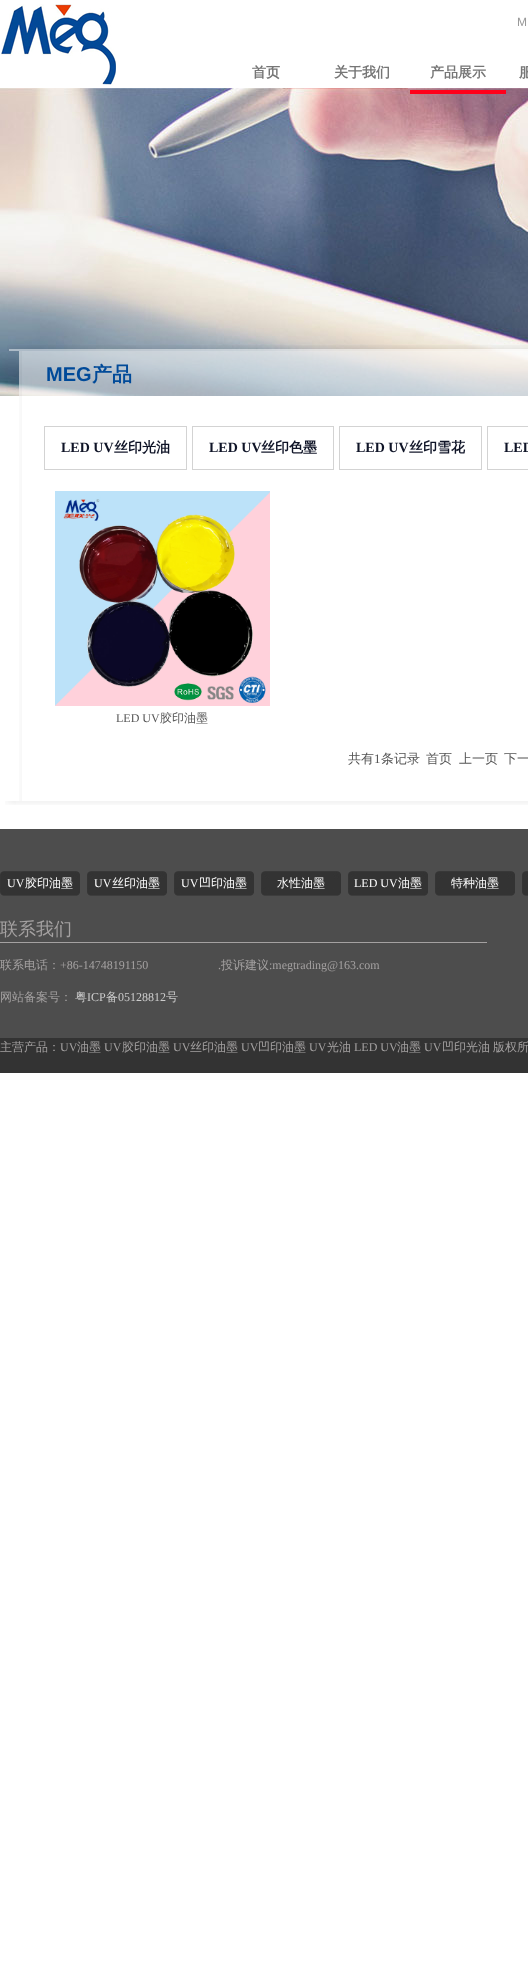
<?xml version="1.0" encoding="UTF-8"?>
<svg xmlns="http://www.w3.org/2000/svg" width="528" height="1972">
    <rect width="100%" height="100%" fill="#FFFFFF"/>
    <image x="1" y="4" width="115" height="82" href="img_01.png"/>
    <text x="517" y="26" font-family="Liberation Sans" font-size="12" fill="#999999">M</text>
    <text x="252" y="77" font-family="WenQuanYi Zen Hei" font-size="14" font-weight="700" fill="#767676">首页</text>
    <text x="334" y="77" font-family="WenQuanYi Zen Hei" font-size="14" font-weight="700" fill="#767676">关于我们</text>
    <image x="0" y="88" width="528" height="308" href="img_02.png"/>
    <rect x="410" y="90" width="96" height="4" fill="#FF001A"/>
    <text x="430" y="77" font-family="WenQuanYi Zen Hei" font-size="14" font-weight="700" fill="#767676">产品展示</text>
    <text x="519" y="77" font-family="WenQuanYi Zen Hei" font-size="14" font-weight="700" fill="#767676">服</text>
    <image x="7" y="345" width="521" height="6" href="img_03.png"/>
    <image x="19" y="351" width="509" height="450" href="img_04.png"/>
    <text x="46" y="381" font-family="Liberation Sans" font-size="20" font-weight="700" fill="#004A99">MEG</text>
    <text x="92" y="381" font-family="WenQuanYi Zen Hei" font-size="20" font-weight="700" fill="#004A99">产品</text>
    <rect x="44.5" y="426.5" width="142" height="43" fill="none" stroke="#D3D3D3"/>
    <text x="61" y="452" font-family="Liberation Serif" font-size="14" font-weight="700" fill="#0F1427">LED UV</text>
    <text x="114" y="452" font-family="WenQuanYi Zen Hei" font-size="14" font-weight="700" fill="#0F1427">丝印光油</text>
    <rect x="192.5" y="426.5" width="141" height="43" fill="none" stroke="#D3D3D3"/>
    <text x="209" y="452" font-family="Liberation Serif" font-size="14" font-weight="700" fill="#0F1427">LED UV</text>
    <text x="261" y="452" font-family="WenQuanYi Zen Hei" font-size="14" font-weight="700" fill="#0F1427">丝印色墨</text>
    <rect x="339.5" y="426.5" width="142" height="43" fill="none" stroke="#D3D3D3"/>
    <text x="356" y="452" font-family="Liberation Serif" font-size="14" font-weight="700" fill="#0F1427">LED UV</text>
    <text x="409" y="452" font-family="WenQuanYi Zen Hei" font-size="14" font-weight="700" fill="#0F1427">丝印雪花</text>
    <rect x="487.5" y="426.5" width="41" height="43" fill="none" stroke="#D3D3D3"/>
    <text x="504" y="452" font-family="Liberation Serif" font-size="14" font-weight="700" fill="#0F1427">LED</text>
    <image x="55" y="491" width="215" height="215" href="img_05.png"/>
    <text x="116" y="722" font-family="Liberation Serif" font-size="12" fill="#555555">LED UV</text>
    <text x="160" y="722" font-family="WenQuanYi Zen Hei" font-size="12" font-weight="500" fill="#555555">胶印油墨</text>
    <text x="348" y="763" font-family="WenQuanYi Zen Hei" font-size="13" font-weight="500" fill="#555555">共有</text>
    <text x="374" y="763" font-family="Liberation Serif" font-size="13" fill="#555555">1</text>
    <text x="381" y="763" font-family="WenQuanYi Zen Hei" font-size="13" font-weight="500" fill="#555555">条记录</text>
    <text x="426" y="763" font-family="WenQuanYi Zen Hei" font-size="13" font-weight="500" fill="#555555">首页</text>
    <text x="459" y="763" font-family="WenQuanYi Zen Hei" font-size="13" font-weight="500" fill="#555555">上一页</text>
    <text x="504" y="763" font-family="WenQuanYi Zen Hei" font-size="13" font-weight="500" fill="#555555">下一</text>
    <image x="5" y="801" width="523" height="4" href="img_06.png"/>
    <image x="0" y="829" width="528" height="244" href="img_07.png"/>
    <image x="0" y="871" width="80" height="25" href="img_08.png"/>
    <text x="7" y="887" font-family="Liberation Serif" font-size="12" fill="#FFFFFF">UV</text>
    <text x="25" y="887" font-family="WenQuanYi Zen Hei" font-size="12" font-weight="500" fill="#FFFFFF">胶印油墨</text>
    <image x="87" y="871" width="80" height="25" href="img_08.png"/>
    <text x="94" y="887" font-family="Liberation Serif" font-size="12" fill="#FFFFFF">UV</text>
    <text x="112" y="887" font-family="WenQuanYi Zen Hei" font-size="12" font-weight="500" fill="#FFFFFF">丝印油墨</text>
    <image x="174" y="871" width="80" height="25" href="img_08.png"/>
    <text x="181" y="887" font-family="Liberation Serif" font-size="12" fill="#FFFFFF">UV</text>
    <text x="199" y="887" font-family="WenQuanYi Zen Hei" font-size="12" font-weight="500" fill="#FFFFFF">凹印油墨</text>
    <image x="261" y="871" width="80" height="25" href="img_08.png"/>
    <text x="277" y="887" font-family="WenQuanYi Zen Hei" font-size="12" font-weight="500" fill="#FFFFFF">水性油墨</text>
    <image x="348" y="871" width="80" height="25" href="img_08.png"/>
    <text x="354" y="887" font-family="Liberation Serif" font-size="12" fill="#FFFFFF">LED UV</text>
    <text x="398" y="887" font-family="WenQuanYi Zen Hei" font-size="12" font-weight="500" fill="#FFFFFF">油墨</text>
    <image x="435" y="871" width="80" height="25" href="img_08.png"/>
    <text x="451" y="887" font-family="WenQuanYi Zen Hei" font-size="12" font-weight="500" fill="#FFFFFF">特种油墨</text>
    <image x="522" y="871" width="6" height="25" href="img_09.png"/>
    <rect x="0" y="942" width="487" height="1" fill="#A4A1A1"/>
    <text x="0" y="935" font-family="WenQuanYi Zen Hei" font-size="18" font-weight="500" fill="#A4A1A1">联系我们</text>
    <text x="0" y="969" font-family="WenQuanYi Zen Hei" font-size="12" font-weight="500" fill="#A4A1A1">联系电话：</text>
    <text x="60" y="969" font-family="Liberation Serif" font-size="12" fill="#A4A1A1">+86-14748191150</text>
    <text x="218" y="969" font-family="Liberation Serif" font-size="12" fill="#A4A1A1">.</text>
    <text x="221" y="969" font-family="WenQuanYi Zen Hei" font-size="12" font-weight="500" fill="#A4A1A1">投诉建议</text>
    <text x="269" y="969" font-family="Liberation Serif" font-size="12" fill="#A4A1A1">:megtrading@163.com</text>
    <text x="0" y="1001" font-family="WenQuanYi Zen Hei" font-size="12" font-weight="500" fill="#A4A1A1">网站备案号：</text>
    <text x="75" y="1001" font-family="WenQuanYi Zen Hei" font-size="12" font-weight="500" fill="#CCCCCC">粤</text>
    <text x="87" y="1001" font-family="Liberation Serif" font-size="12" fill="#CCCCCC">ICP</text>
    <text x="106" y="1001" font-family="WenQuanYi Zen Hei" font-size="12" font-weight="500" fill="#CCCCCC">备</text>
    <text x="118" y="1001" font-family="Liberation Serif" font-size="12" fill="#CCCCCC">05128812</text>
    <text x="166" y="1001" font-family="WenQuanYi Zen Hei" font-size="12" font-weight="500" fill="#CCCCCC">号</text>
    <text x="0" y="1051" font-family="WenQuanYi Zen Hei" font-size="12" font-weight="500" fill="#A4A1A1">主营产品：</text>
    <text x="60" y="1051" font-family="Liberation Serif" font-size="12" fill="#A4A1A1">UV</text>
    <text x="77" y="1051" font-family="WenQuanYi Zen Hei" font-size="12" font-weight="500" fill="#A4A1A1">油墨</text>
    <text x="104" y="1051" font-family="Liberation Serif" font-size="12" fill="#A4A1A1">UV</text>
    <text x="122" y="1051" font-family="WenQuanYi Zen Hei" font-size="12" font-weight="500" fill="#A4A1A1">胶印油墨</text>
    <text x="173" y="1051" font-family="Liberation Serif" font-size="12" fill="#A4A1A1">UV</text>
    <text x="190" y="1051" font-family="WenQuanYi Zen Hei" font-size="12" font-weight="500" fill="#A4A1A1">丝印油墨</text>
    <text x="241" y="1051" font-family="Liberation Serif" font-size="12" fill="#A4A1A1">UV</text>
    <text x="258" y="1051" font-family="WenQuanYi Zen Hei" font-size="12" font-weight="500" fill="#A4A1A1">凹印油墨</text>
    <text x="309" y="1051" font-family="Liberation Serif" font-size="12" fill="#A4A1A1">UV</text>
    <text x="327" y="1051" font-family="WenQuanYi Zen Hei" font-size="12" font-weight="500" fill="#A4A1A1">光油</text>
    <text x="354" y="1051" font-family="Liberation Serif" font-size="12" fill="#A4A1A1">LED UV</text>
    <text x="397" y="1051" font-family="WenQuanYi Zen Hei" font-size="12" font-weight="500" fill="#A4A1A1">油墨</text>
    <text x="424" y="1051" font-family="Liberation Serif" font-size="12" fill="#A4A1A1">UV</text>
    <text x="442" y="1051" font-family="WenQuanYi Zen Hei" font-size="12" font-weight="500" fill="#A4A1A1">凹印光油</text>
    <text x="493" y="1051" font-family="WenQuanYi Zen Hei" font-size="12" font-weight="500" fill="#A4A1A1">版权所</text>
</svg>
